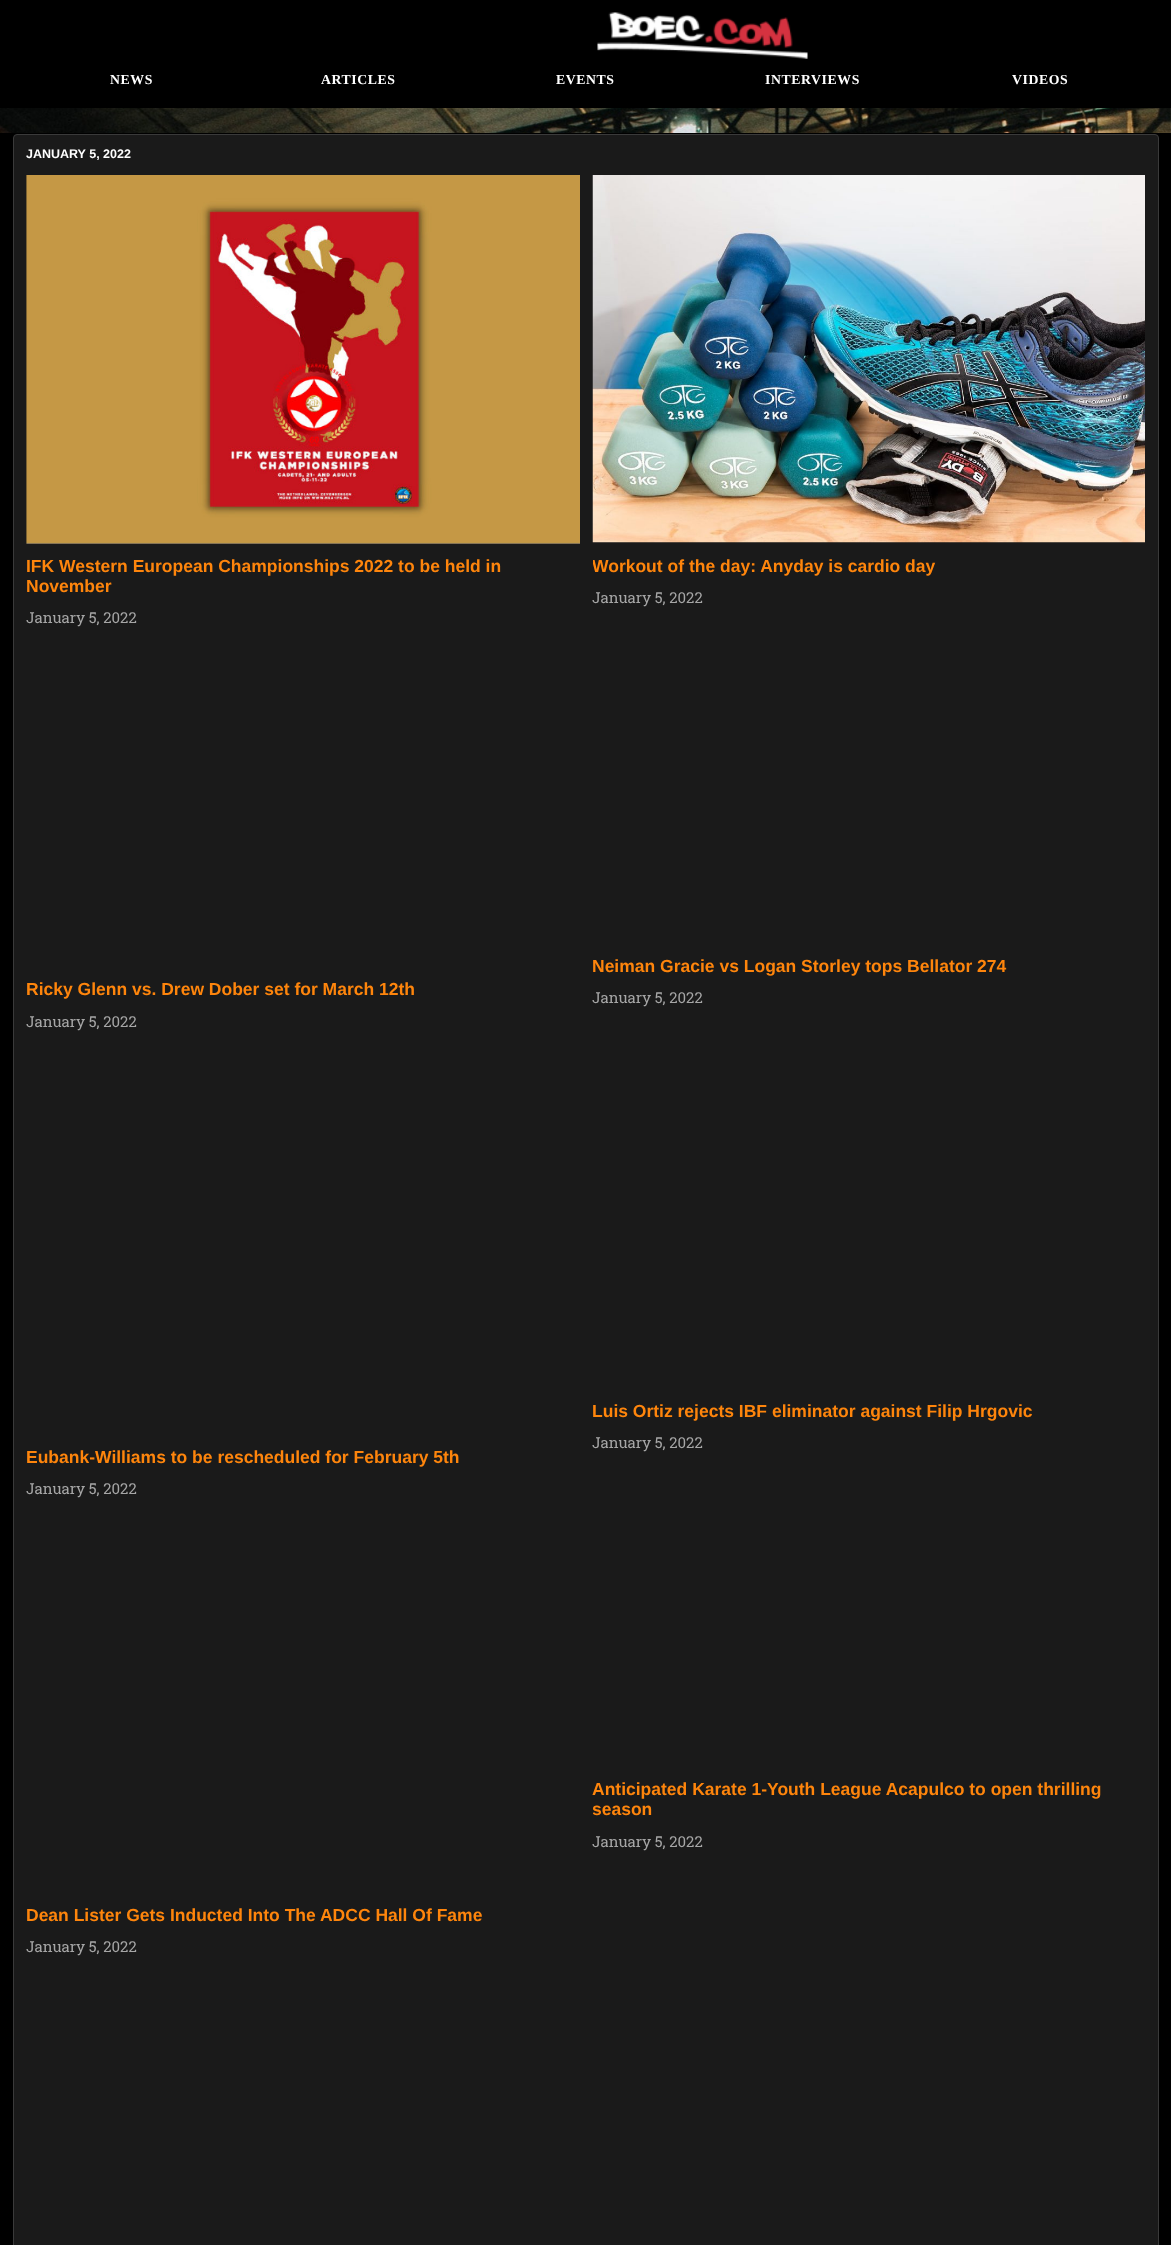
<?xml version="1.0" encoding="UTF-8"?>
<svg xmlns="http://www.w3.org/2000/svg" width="1171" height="2245">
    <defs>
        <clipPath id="clip1"><rect x="593" y="175" width="552" height="445"/></clipPath>
        <clipPath id="clip2"><rect x="593" y="1478" width="552" height="386"/></clipPath>
    </defs>
    <rect width="100%" height="100%" fill="#FFFFFF"/>
    <image x="0" y="108" width="1171" height="25" href="img_01.png"/>
    <rect x="0" y="0" width="1171" height="108" fill="#000000"/>
    <image x="597" y="12" width="211" height="47" href="img_02.png"/>
    <text x="110" y="84" font-family="Liberation Serif" font-size="13.75" font-weight="700" letter-spacing="0.6" fill="#FFFFFF">NEWS</text>
    <text x="321" y="84" font-family="Liberation Serif" font-size="13.75" font-weight="700" letter-spacing="0.6" fill="#FFFFFF">ARTICLES</text>
    <text x="556" y="84" font-family="Liberation Serif" font-size="13.75" font-weight="700" letter-spacing="0.6" fill="#FFFFFF">EVENTS</text>
    <text x="765" y="84" font-family="Liberation Serif" font-size="13.75" font-weight="700" letter-spacing="0.6" fill="#FFFFFF">INTERVIEWS</text>
    <text x="1012" y="84" font-family="Liberation Serif" font-size="13.75" font-weight="700" letter-spacing="0.6" fill="#FFFFFF">VIDEOS</text>
    <rect x="0" y="133" width="1171" height="2112" fill="#000000"/>
    <rect x="13.5" y="134.5" width="1145" height="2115" rx="3.5" fill="#1A1A1A" stroke="#3A3A3A"/>
    <text x="26" y="158" font-family="Liberation Sans" font-size="12.5" font-weight="700" fill="#FFFFFF">JANUARY 5, 2022</text>
    <image x="26" y="175" width="554" height="369" href="img_03.png"/>
    <text font-family="Liberation Sans" font-size="17.5" font-weight="700" fill="#FE850C">
        <tspan x="26" y="572">IFK Western European Championships 2022 to be held in</tspan>
        <tspan x="26" y="592">November</tspan>
    </text>
    <text x="26" y="623" font-family="Roboto Slab" font-size="15" fill="#A6A6A6">January 5, 2022</text>
    <image x="592" y="175" width="553" height="368" href="img_04.png"/>
    <g clip-path="url(#clip1)">
        <text x="592" y="572" font-family="Liberation Sans" font-size="17.5" font-weight="700" fill="#FE850C">Workout of the day: Anyday is cardio day</text>
    </g>
    <text x="592" y="603" font-family="Roboto Slab" font-size="15" fill="#A6A6A6">January 5, 2022</text>
    <text x="26" y="995" font-family="Liberation Sans" font-size="17.5" font-weight="700" fill="#FE850C">Ricky Glenn vs. Drew Dober set for March 12th</text>
    <text x="26" y="1027" font-family="Roboto Slab" font-size="15" fill="#A6A6A6">January 5, 2022</text>
    <text x="592" y="972" font-family="Liberation Sans" font-size="17.5" font-weight="700" fill="#FE850C">Neiman Gracie vs Logan Storley tops Bellator 274</text>
    <text x="592" y="1003" font-family="Roboto Slab" font-size="15" fill="#A6A6A6">January 5, 2022</text>
    <text x="592" y="1417" font-family="Liberation Sans" font-size="17.5" font-weight="700" fill="#FE850C">Luis Ortiz rejects IBF eliminator against Filip Hrgovic</text>
    <text x="592" y="1448" font-family="Roboto Slab" font-size="15" fill="#A6A6A6">January 5, 2022</text>
    <text x="26" y="1463" font-family="Liberation Sans" font-size="17.5" font-weight="700" fill="#FE850C">Eubank-Williams to be rescheduled for February 5th</text>
    <text x="26" y="1494" font-family="Roboto Slab" font-size="15" fill="#A6A6A6">January 5, 2022</text>
    <text x="592" y="1795" font-family="Liberation Sans" font-size="17.5" font-weight="700" fill="#FE850C">Anticipated Karate 1-Youth League Acapulco to open thrilling</text>
    <g clip-path="url(#clip2)">
        <text x="592" y="1815" font-family="Liberation Sans" font-size="17.5" font-weight="700" fill="#FE850C">season</text>
    </g>
    <text x="592" y="1847" font-family="Roboto Slab" font-size="15" fill="#A6A6A6">January 5, 2022</text>
    <text x="26" y="1921" font-family="Liberation Sans" font-size="17.5" font-weight="700" fill="#FE850C">Dean Lister Gets Inducted Into The ADCC Hall Of Fame</text>
    <text x="26" y="1952" font-family="Roboto Slab" font-size="15" fill="#A6A6A6">January 5, 2022</text>
</svg>
